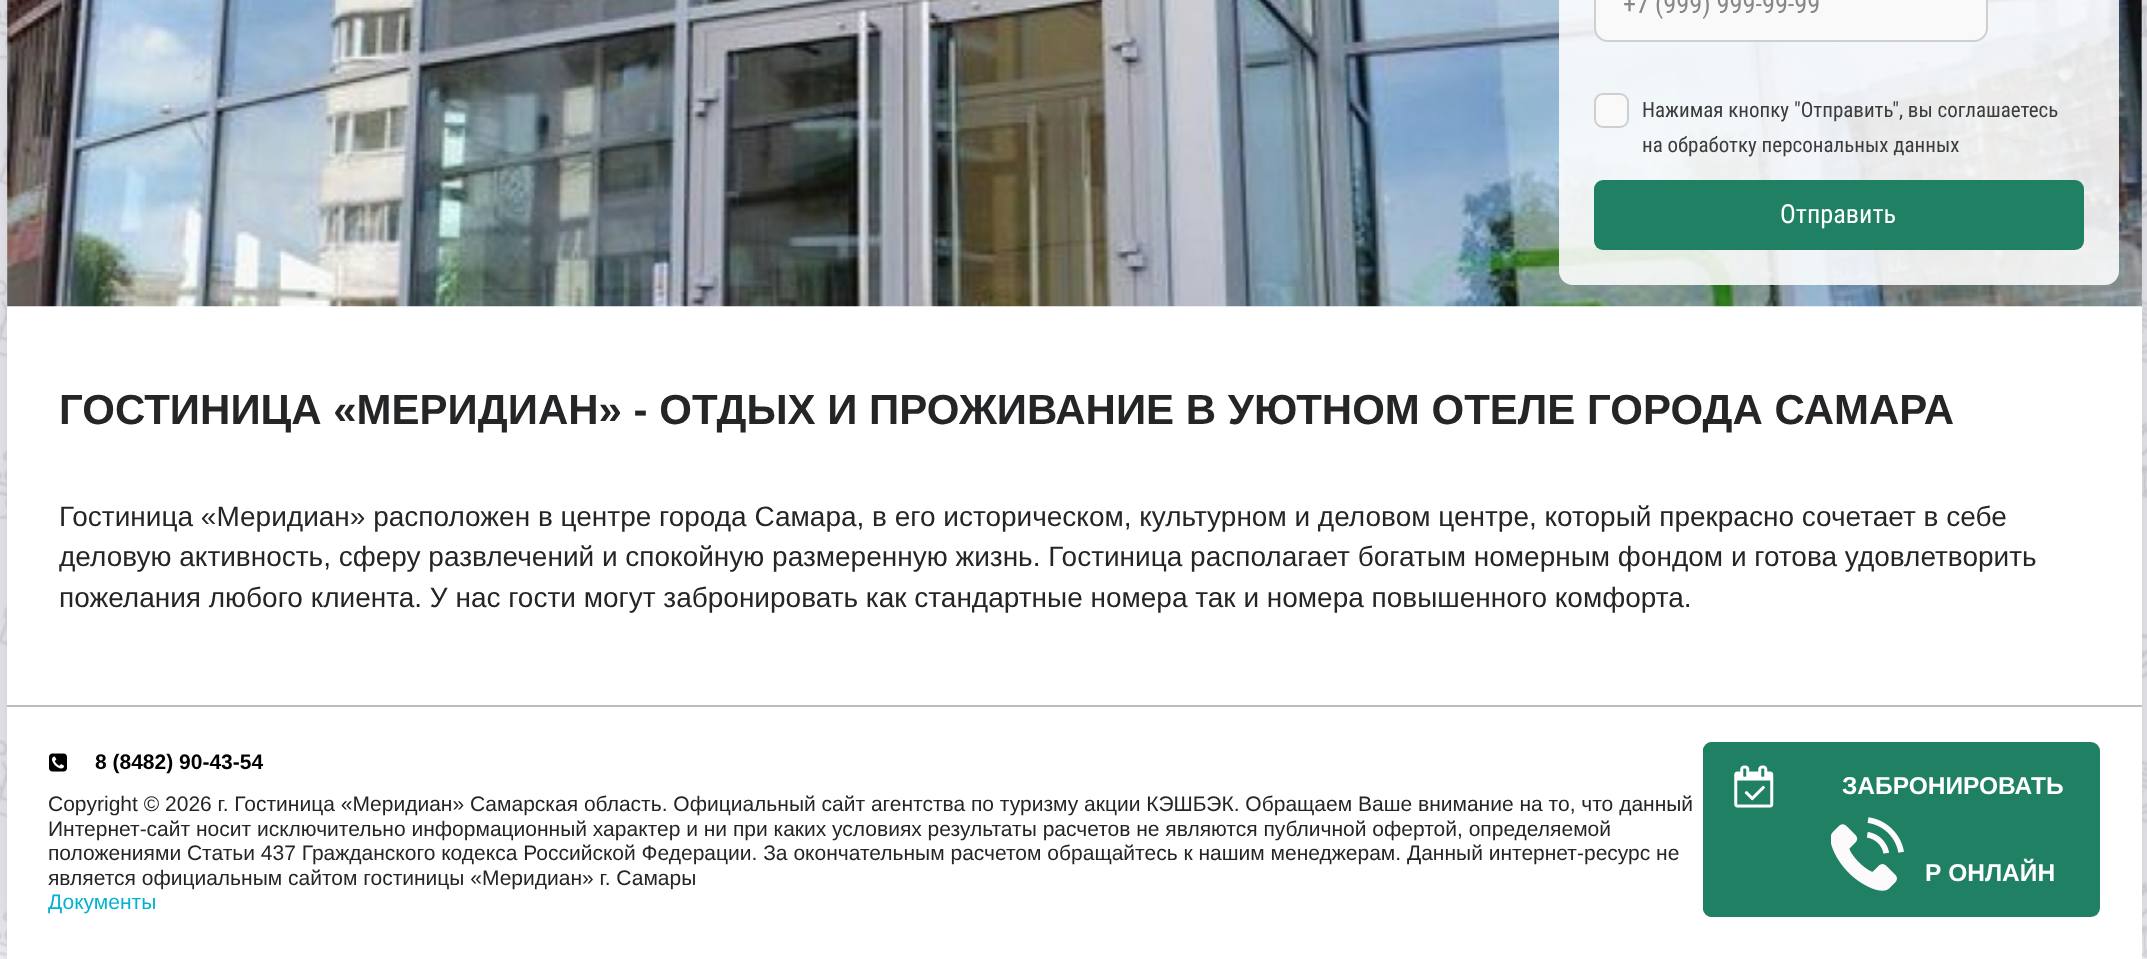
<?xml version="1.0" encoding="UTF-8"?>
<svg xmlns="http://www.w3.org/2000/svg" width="2147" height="959">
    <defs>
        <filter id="blur1" x="-50%" y="-200%" width="200%" height="500%"><feGaussianBlur stdDeviation="35"/></filter>
    </defs>
    <rect width="100%" height="100%" fill="#FFFFFF"/>
    <image x="0" y="0" width="2147" height="959" href="img_01.png"/>
    <rect x="7" y="-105" width="2135" height="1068" fill="#212529" fill-opacity="0.3" filter="url(#blur1)"/>
    <rect x="7" y="0" width="2135" height="959" fill="#FFFFFF"/>
    <image x="7" y="0" width="1" height="307" href="img_02.png"/>
    <image x="7" y="0" width="2135" height="307" href="img_03.png"/>
    <image x="2141" y="0" width="1" height="307" href="img_04.png"/>
    <rect x="1559" y="-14" width="560" height="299" rx="14" fill="#FFFFFF" fill-opacity="0.87"/>
    <rect x="1595" y="-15" width="392" height="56" rx="13" fill="#F9F9F9" stroke="#CFCFCF" stroke-width="2"/>
    <text x="1623" y="13" font-family="Roboto Condensed" font-size="26.25" fill="#868787">+7 (999) 999-99-99</text>
    <rect x="1595" y="94" width="33" height="33" rx="8" fill="#F9F9F9" stroke="#CFCFCF" stroke-width="2"/>
    <text font-family="Roboto Condensed" font-size="21" fill="#3C3C3C">
        <tspan x="1642" y="117">Нажимая кнопку "Отправить", вы соглашаетесь</tspan>
        <tspan x="1642" y="152">на обработку персональных данных</tspan>
    </text>
    <rect x="1594" y="180" width="490" height="70" rx="9" fill="#208063"/>
    <text x="1780" y="223" font-family="Roboto Condensed" font-size="26.25" fill="#FFFFFF">Отправить</text>
    <text x="59" y="424" font-family="Liberation Sans" font-size="42" font-weight="700" fill="#242526">ГОСТИНИЦА «МЕРИДИАН» - ОТДЫХ И ПРОЖИВАНИЕ В УЮТНОМ ОТЕЛЕ ГОРОДА САМАРА</text>
    <text font-family="Liberation Sans" font-size="28" fill="#242526">
        <tspan x="59" y="526">Гостиница «Меридиан» расположен в центре города Самара, в его историческом, культурном и деловом центре, который прекрасно сочетает в себе</tspan>
        <tspan x="59" y="566">деловую активность, сферу развлечений и спокойную размеренную жизнь. Гостиница располагает богатым номерным фондом и готова удовлетворить</tspan>
        <tspan x="59" y="607">пожелания любого клиента. У нас гости могут забронировать как стандартные номера так и номера повышенного комфорта.</tspan>
    </text>
    <rect x="7" y="705" width="2135" height="2" fill="#BDBDBD"/>
    <image x="49" y="753" width="18" height="19" href="img_05.png"/>
    <text x="95" y="769" font-family="Liberation Sans" font-size="21" font-weight="700" fill="#000000">8 (8482) 90-43-54</text>
    <text font-family="Liberation Sans" font-size="21" fill="#242526">
        <tspan x="48" y="811">Copyright © 2026 г. Гостиница «Меридиан» Самарская область. Официальный сайт агентства по туризму акции КЭШБЭК. Обращаем Ваше внимание на то, что данный</tspan>
        <tspan x="48" y="836">Интернет-сайт носит исключительно информационный характер и ни при каких условиях результаты расчетов не являются публичной офертой, определяемой</tspan>
        <tspan x="48" y="860">положениями Статьи 437 Гражданского кодекса Российской Федерации. За окончательным расчетом обращайтесь к нашим менеджерам. Данный интернет-ресурс не</tspan>
        <tspan x="48" y="885">является официальным сайтом гостиницы «Меридиан» г. Самары</tspan>
    </text>
    <text x="48" y="909" font-family="Liberation Sans" font-size="21" fill="#04B2D1">Документы</text>
    <rect x="1703" y="742" width="397" height="175" rx="9" fill="#208063"/>
    <path d="M 1712 742 H 1808 V 917 H 1712 C 1707 917 1703 913 1703 908 V 751 C 1703 746 1707 742 1712 742 Z" fill="#208063"/>
    <image x="1734" y="765" width="40" height="43" href="img_06.png"/>
    <text x="1842" y="794" font-family="Liberation Sans" font-size="24.5" font-weight="700" fill="#FFFFFF">ЗАБРОНИРОВАТЬ</text>
    <text x="1925" y="881" font-family="Liberation Sans" font-size="24.5" font-weight="700" fill="#FFFFFF">Р ОНЛАЙН</text>
    <image x="1831" y="817" width="73" height="74" href="img_07.png"/>
</svg>
